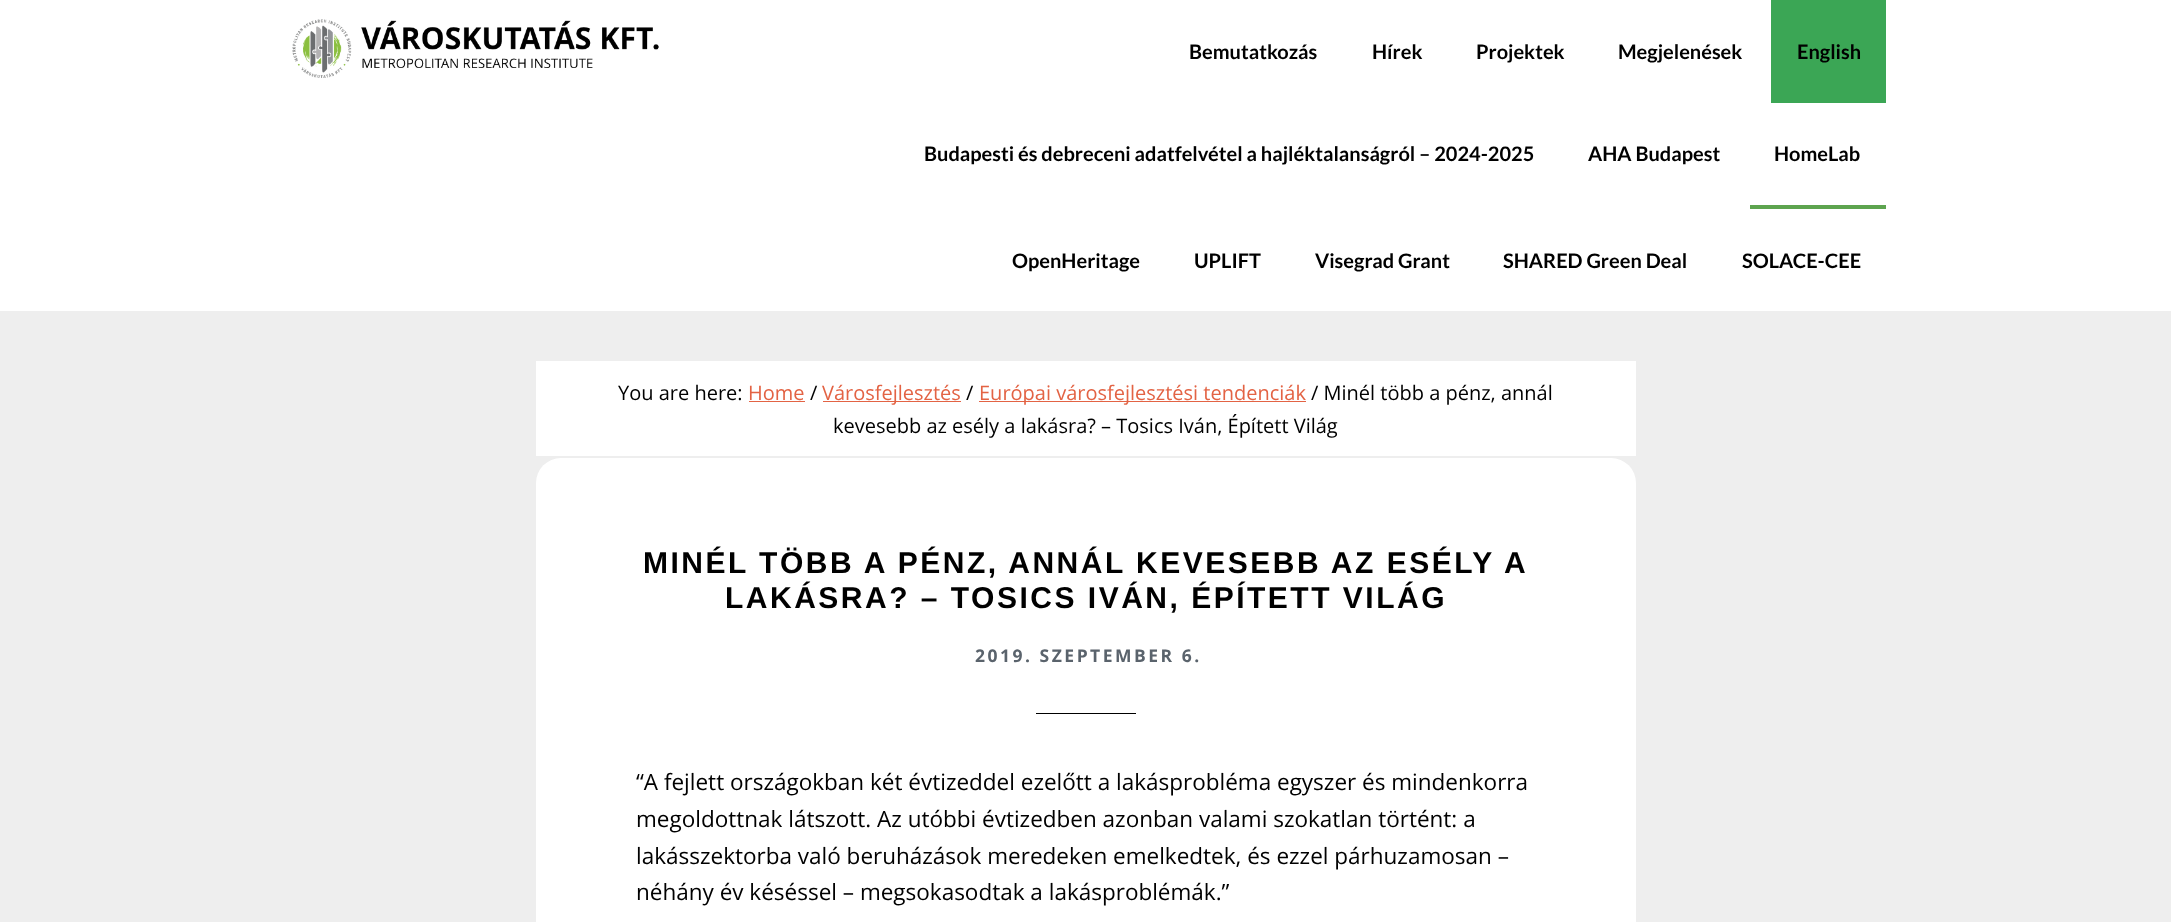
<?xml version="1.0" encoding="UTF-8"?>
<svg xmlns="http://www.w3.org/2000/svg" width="2171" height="922">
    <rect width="100%" height="100%" fill="#EEEEEE"/>
    <rect x="0" y="0" width="2171" height="311" fill="#FFFFFF"/>
    <image x="292" y="19" width="367" height="59" href="img_01.png"/>
    <text x="1189" y="59" font-family="Lato" font-size="20" font-weight="700" fill="#000000">Bemutatkozás</text>
    <text x="1372" y="59" font-family="Lato" font-size="20" font-weight="700" fill="#000000">Hírek</text>
    <text x="1476" y="59" font-family="Lato" font-size="20" font-weight="700" fill="#000000">Projektek</text>
    <text x="1618" y="59" font-family="Lato" font-size="20" font-weight="700" fill="#000000">Megjelenések</text>
    <rect x="1771" y="0" width="115" height="103" fill="#3BA655"/>
    <text x="1797" y="59" font-family="Lato" font-size="20" font-weight="700" fill="#000000">English</text>
    <text x="924" y="161" font-family="Lato" font-size="20" font-weight="700" fill="#000000">Budapesti és debreceni adatfelvétel a hajléktalanságról – 2024-2025</text>
    <text x="1588" y="161" font-family="Lato" font-size="20" font-weight="700" fill="#000000">AHA Budapest</text>
    <rect x="1750" y="205" width="136" height="4" fill="#5DA44F"/>
    <text x="1774" y="161" font-family="Lato" font-size="20" font-weight="700" fill="#000000">HomeLab</text>
    <text x="1012" y="268" font-family="Lato" font-size="20" font-weight="700" fill="#000000">OpenHeritage</text>
    <text x="1194" y="268" font-family="Lato" font-size="20" font-weight="700" fill="#000000">UPLIFT</text>
    <text x="1315" y="268" font-family="Lato" font-size="20" font-weight="700" fill="#000000">Visegrad Grant</text>
    <text x="1503" y="268" font-family="Lato" font-size="20" font-weight="700" fill="#000000">SHARED Green Deal</text>
    <text x="1742" y="268" font-family="Lato" font-size="20" font-weight="700" fill="#000000">SOLACE-CEE</text>
    <rect x="536" y="361" width="1100" height="95" fill="#FFFFFF"/>
    <text x="618" y="400" font-family="Open Sans" font-size="20" fill="#000000">You are here:</text>
    <text x="748" y="400" font-family="Open Sans" font-size="20" fill="#E36344">Home</text>
    <rect x="749" y="401" width="56" height="1" fill="#E36344"/>
    <text x="810" y="400" font-family="Open Sans" font-size="20" fill="#000000">/</text>
    <rect x="823" y="401" width="138" height="1" fill="#E36344"/>
    <text x="822" y="400" font-family="Open Sans" font-size="20" fill="#E36344">Városfejlesztés</text>
    <text x="966" y="400" font-family="Open Sans" font-size="20" fill="#000000">/</text>
    <rect x="979" y="401" width="327" height="1" fill="#E36344"/>
    <text x="979" y="400" font-family="Open Sans" font-size="20" fill="#E36344">Európai városfejlesztési tendenciák</text>
    <text x="1311" y="400" font-family="Open Sans" font-size="20" fill="#000000">/ Minél több a pénz, annál</text>
    <text x="833" y="433" font-family="Open Sans" font-size="20" fill="#000000">kevesebb az esély a lakásra? – Tosics Iván, Épített Világ</text>
    <rect x="536" y="458" width="1100" height="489" rx="25" fill="#FFFFFF"/>
    <text x="643" y="573" font-family="Liberation Sans" font-size="30" font-weight="700" letter-spacing="2.5" fill="#000000">MINÉL TÖBB A PÉNZ, ANNÁL KEVESEBB AZ ESÉLY A</text>
    <text x="725" y="608" font-family="Liberation Sans" font-size="30" font-weight="700" letter-spacing="2.5" fill="#000000">LAKÁSRA? – TOSICS IVÁN, ÉPÍTETT VILÁG</text>
    <text x="975" y="662" font-family="Open Sans" font-size="17.5" font-weight="700" letter-spacing="2.5" fill="#5A636C">2019. SZEPTEMBER 6.</text>
    <rect x="1036" y="713" width="100" height="1" fill="#000000"/>
    <text font-family="Open Sans" font-size="22.5" fill="#000000">
        <tspan x="636" y="790">“A fejlett országokban két évtizeddel ezelőtt a lakásprobléma egyszer és mindenkorra</tspan>
        <tspan x="636" y="827">megoldottnak látszott. Az utóbbi évtizedben azonban valami szokatlan történt: a</tspan>
        <tspan x="636" y="864">lakásszektorba való beruházások meredeken emelkedtek, és ezzel párhuzamosan –</tspan>
        <tspan x="636" y="900">néhány év késéssel – megsokasodtak a lakásproblémák.”</tspan>
    </text>
</svg>
